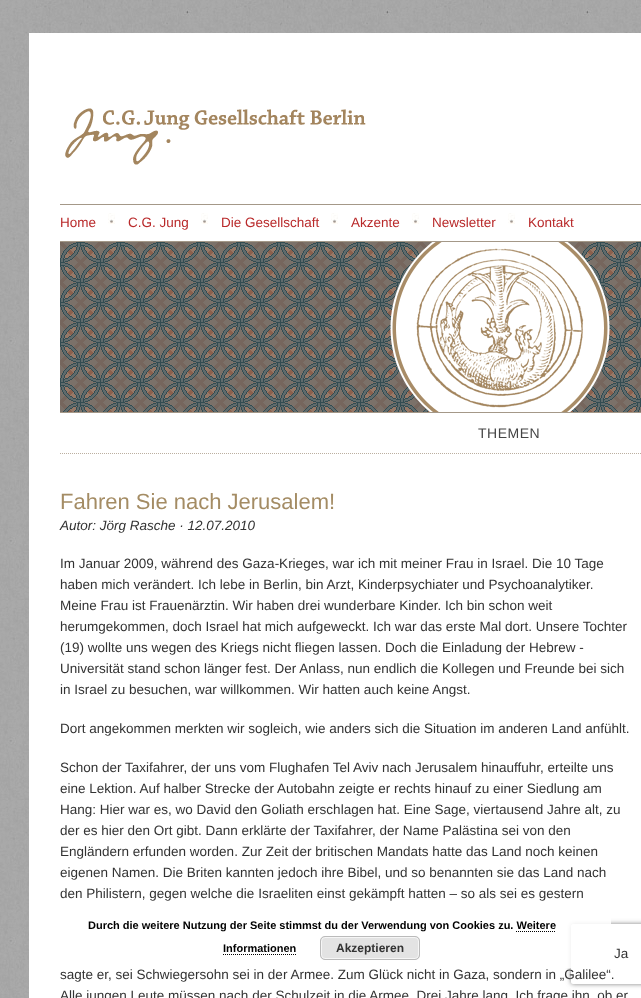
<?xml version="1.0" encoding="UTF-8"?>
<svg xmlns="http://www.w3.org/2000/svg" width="641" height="998">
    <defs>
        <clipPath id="clip1"><path d="M 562 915 H 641 V 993 H 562 Z M 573 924 H 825 C 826 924 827 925 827 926 V 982 C 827 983 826 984 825 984 H 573 C 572 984 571 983 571 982 V 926 C 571 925 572 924 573 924 Z" clip-rule="evenodd"/></clipPath>
        <filter id="blur1" x="-50%" y="-200%" width="200%" height="500%"><feGaussianBlur stdDeviation="2.5"/></filter>
    </defs>
    <rect width="100%" height="100%" fill="#FFFFFF"/>
    <image x="0" y="0" width="641" height="998" href="img_01.png"/>
    <rect x="29" y="33" width="612" height="209" fill="#FFFFFF"/>
    <image x="65" y="108" width="301" height="57" href="img_02.png"/>
    <rect x="60" y="204" width="581" height="1" fill="#A49888"/>
    <rect x="60" y="241" width="581" height="1" fill="#A49888"/>
    <text x="60" y="227" font-family="Liberation Sans" font-size="13.5" fill="#B92A2B">Home</text>
    <image x="108" y="213" width="7" height="11" href="img_03.png"/>
    <text x="128" y="227" font-family="Liberation Sans" font-size="13.5" fill="#B92A2B">C.G. Jung</text>
    <image x="201" y="213" width="7" height="11" href="img_03.png"/>
    <text x="221" y="227" font-family="Liberation Sans" font-size="13.5" fill="#B92A2B">Die Gesellschaft</text>
    <image x="331" y="213" width="7" height="11" href="img_03.png"/>
    <text x="351" y="227" font-family="Liberation Sans" font-size="13.5" fill="#B92A2B">Akzente</text>
    <image x="412" y="213" width="7" height="11" href="img_03.png"/>
    <text x="432" y="227" font-family="Liberation Sans" font-size="13.5" fill="#B92A2B">Newsletter</text>
    <image x="508" y="213" width="7" height="11" href="img_03.png"/>
    <text x="528" y="227" font-family="Liberation Sans" font-size="13.5" fill="#B92A2B">Kontakt</text>
    <rect x="29" y="242" width="31" height="170" fill="#FFFFFF"/>
    <image x="60" y="242" width="581" height="170" href="img_04.png"/>
    <rect x="29" y="412" width="612" height="586" fill="#FFFFFF"/>
    <rect x="60" y="412" width="581" height="1" fill="#A49888"/>
    <path d="M 60 453.5 H 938" fill="none" stroke="#BBAFA0" stroke-dasharray="1 1"/>
    <text x="478" y="438" font-family="Liberation Sans" font-size="14" letter-spacing="0.5" fill="#444444">THEMEN</text>
    <text x="60" y="509" font-family="Liberation Sans" font-size="22" fill="#A48C64">Fahren Sie nach Jerusalem!</text>
    <text x="60" y="530" font-family="Liberation Sans" font-size="13.5" font-style="italic" fill="#333333">Autor: Jörg Rasche · 12.07.2010</text>
    <text font-family="Liberation Sans" font-size="13.5" fill="#333333">
        <tspan x="60" y="568">Im Januar 2009, während des Gaza-Krieges, war ich mit meiner Frau in Israel. Die 10 Tage</tspan>
        <tspan x="60" y="589">haben mich verändert. Ich lebe in Berlin, bin Arzt, Kinderpsychiater und Psychoanalytiker.</tspan>
        <tspan x="60" y="610">Meine Frau ist Frauenärztin. Wir haben drei wunderbare Kinder. Ich bin schon weit</tspan>
        <tspan x="60" y="631">herumgekommen, doch Israel hat mich aufgeweckt. Ich war das erste Mal dort. Unsere Tochter</tspan>
        <tspan x="60" y="652">(19) wollte uns wegen des Kriegs nicht fliegen lassen. Doch die Einladung der Hebrew -</tspan>
        <tspan x="60" y="673">Universität stand schon länger fest. Der Anlass, nun endlich die Kollegen und Freunde bei sich</tspan>
        <tspan x="60" y="694">in Israel zu besuchen, war willkommen. Wir hatten auch keine Angst.</tspan>
    </text>
    <text x="60" y="733" font-family="Liberation Sans" font-size="13.5" fill="#333333">Dort angekommen merkten wir sogleich, wie anders sich die Situation im anderen Land anfühlt.</text>
    <text font-family="Liberation Sans" font-size="13.5" fill="#333333">
        <tspan x="60" y="772">Schon der Taxifahrer, der uns vom Flughafen Tel Aviv nach Jerusalem hinauffuhr, erteilte uns</tspan>
        <tspan x="60" y="793">eine Lektion. Auf halber Strecke der Autobahn zeigte er rechts hinauf zu einer Siedlung am</tspan>
        <tspan x="60" y="814">Hang: Hier war es, wo David den Goliath erschlagen hat. Eine Sage, viertausend Jahre alt, zu</tspan>
        <tspan x="60" y="835">der es hier den Ort gibt. Dann erklärte der Taxifahrer, der Name Palästina sei von den</tspan>
        <tspan x="60" y="856">Engländern erfunden worden. Zur Zeit der britischen Mandats hatte das Land noch keinen</tspan>
        <tspan x="60" y="877">eigenen Namen. Die Briten kannten jedoch ihre Bibel, und so benannten sie das Land nach</tspan>
        <tspan x="60" y="898">den Philistern, gegen welche die Israeliten einst gekämpft hatten – so als sei es gestern</tspan>
    </text>
    <text x="614" y="958" font-family="Liberation Sans" font-size="13.5" fill="#333333">Ja</text>
    <text font-family="Liberation Sans" font-size="13.5" fill="#333333">
        <tspan x="60" y="979">sagte er, sei Schwiegersohn sei in der Armee. Zum Glück nicht in Gaza, sondern in „Galilee“.</tspan>
        <tspan x="60" y="1000">Alle jungen Leute müssen nach der Schulzeit in die Armee. Drei Jahre lang. Ich frage ihn, ob er</tspan>
    </text>
    <g clip-path="url(#clip1)">
        <rect x="571" y="924" width="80" height="60" rx="2" fill="#808080" filter="url(#blur1)"/>
    </g>
    <rect x="32" y="907" width="579" height="61" rx="5" fill="#FFFFFF" fill-opacity="0.85"/>
    <text x="88" y="929" font-family="Liberation Sans" font-size="11" font-weight="700" fill="#000000">Durch die weitere Nutzung der Seite stimmst du der Verwendung von Cookies zu. Weitere</text>
    <text x="223" y="952" font-family="Liberation Sans" font-size="11" font-weight="700" fill="#000000">Informationen</text>
    <path d="M 516 931.5 H 556" fill="none" stroke="#000000" stroke-dasharray="1 1"/>
    <path d="M 223 954.5 H 297" fill="none" stroke="#000000" stroke-dasharray="1 1"/>
    <rect x="320" y="936" width="100" height="24" rx="5" fill="#E3E3E3"/>
    <rect x="321.5" y="937.5" width="97" height="21" rx="3.5" fill="none" stroke="#F6F6F6"/>
    <rect x="320.5" y="936.5" width="99" height="23" rx="4.5" fill="none" stroke="#BBBBBB"/>
    <text x="336" y="952" font-family="Liberation Sans" font-size="12" font-weight="700" fill="#333333">Akzeptieren</text>
</svg>
